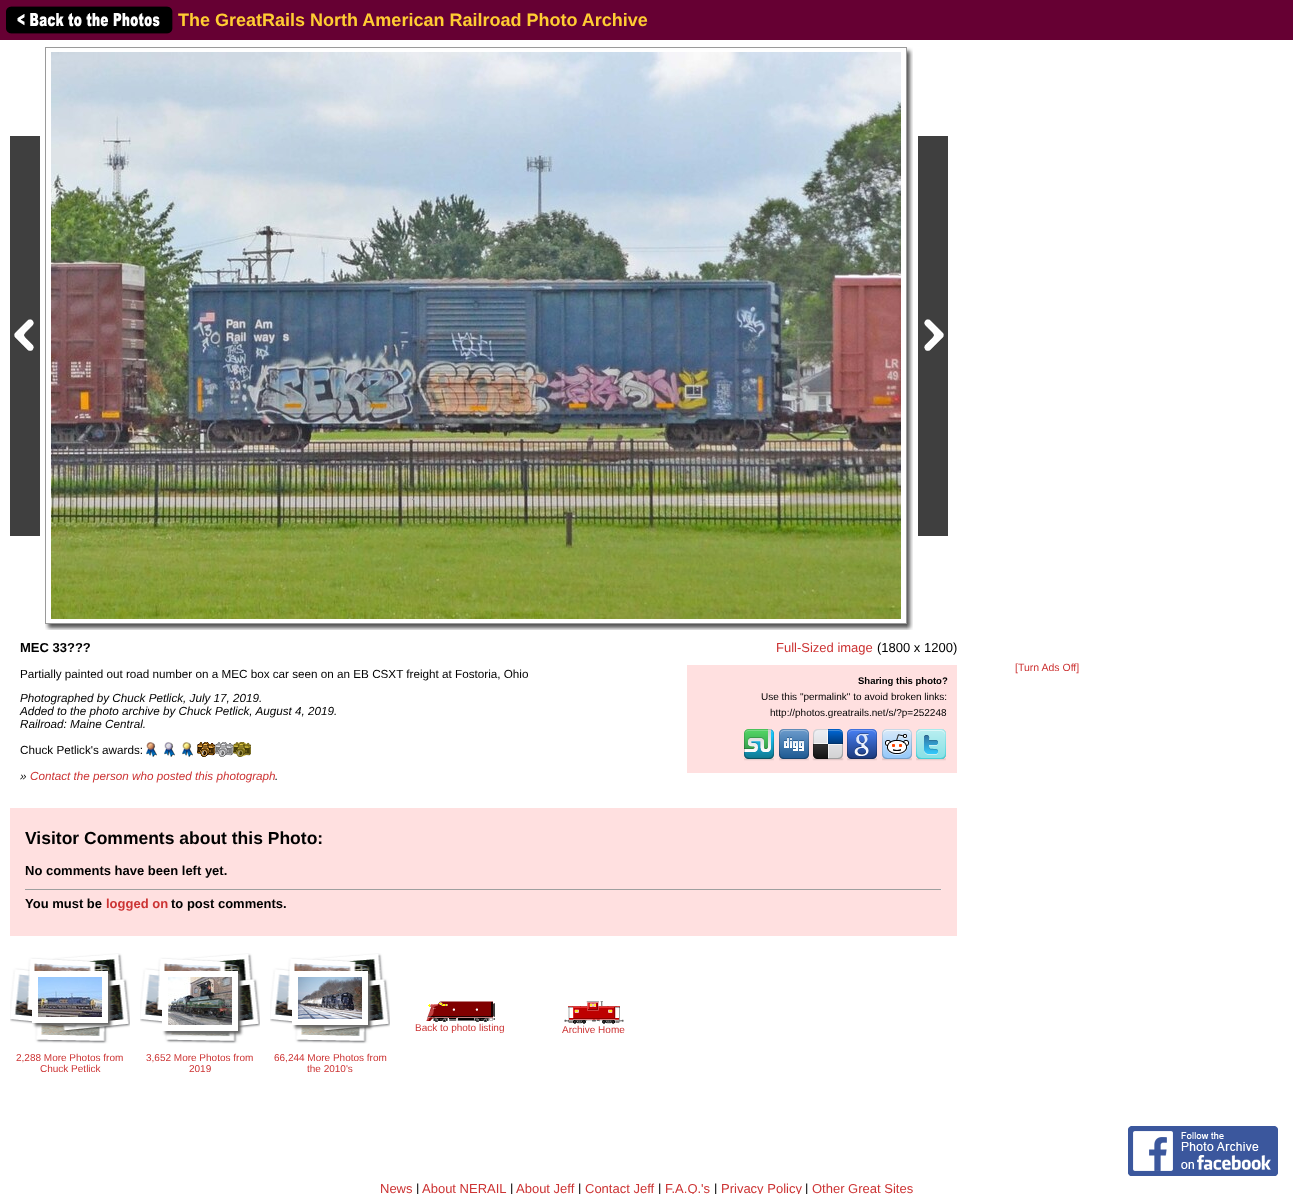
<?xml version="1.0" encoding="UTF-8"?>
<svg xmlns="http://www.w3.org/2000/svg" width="1293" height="1194">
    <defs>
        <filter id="blur1" x="-50%" y="-200%" width="200%" height="500%"><feGaussianBlur stdDeviation="1.5"/></filter>
    </defs>
    <rect width="100%" height="100%" fill="#FFFFFF"/>
    <rect x="0" y="0" width="1293" height="40" fill="#660033"/>
    <image x="6" y="6" width="167" height="28" href="img_01.png"/>
    <text x="178" y="26" font-family="Liberation Sans" font-size="18" font-weight="700" fill="#FFCC33">The GreatRails North American Railroad Photo Archive</text>
    <image x="10" y="136" width="30" height="400" href="img_02.png"/>
    <rect x="45.5" y="47.5" width="861" height="576" fill="none" stroke="#9A9A9A"/>
    <image x="51" y="52" width="850" height="567" href="img_03.png"/>
    <image x="907" y="47" width="6" height="577" href="img_04.png"/>
    <image x="918" y="136" width="30" height="400" href="img_05.png"/>
    <image x="45" y="624" width="862" height="6" href="img_06.png"/>
    <image x="907" y="624" width="6" height="6" href="img_07.png"/>
    <text x="20" y="652" font-family="Liberation Sans" font-size="13" font-weight="700" fill="#000000">MEC 33???</text>
    <text x="20" y="678" font-family="Liberation Sans" font-size="11.7" fill="#000000">Partially painted out road number on a MEC box car seen on an EB CSXT freight at Fostoria, Ohio</text>
    <text font-family="Liberation Sans" font-size="11.7" font-style="italic" fill="#000000">
        <tspan x="20" y="702">Photographed by Chuck Petlick, July 17, 2019.</tspan>
        <tspan x="20" y="715">Added to the photo archive by Chuck Petlick, August 4, 2019.</tspan>
        <tspan x="20" y="728">Railroad: Maine Central.</tspan>
    </text>
    <text x="20" y="754" font-family="Liberation Sans" font-size="11.7" fill="#000000">Chuck Petlick's awards:</text>
    <image x="146" y="742" width="11" height="15" href="img_08.png"/>
    <image x="164" y="742" width="11" height="15" href="img_09.png"/>
    <image x="182" y="742" width="11" height="15" href="img_10.png"/>
    <image x="197" y="742" width="18" height="15" href="img_11.png"/>
    <image x="215" y="742" width="18" height="15" href="img_12.png"/>
    <image x="233" y="742" width="18" height="15" href="img_13.png"/>
    <text x="20" y="780" font-family="Liberation Sans" font-size="11.7" font-style="italic" fill="#000000">»</text>
    <text x="30" y="780" font-family="Liberation Sans" font-size="11.7" font-style="italic" fill="#CC3333">Contact the person who posted this photograph</text>
    <text x="275" y="780" font-family="Liberation Sans" font-size="11.7" font-style="italic" fill="#000000">.</text>
    <text x="776" y="652" font-family="Liberation Sans" font-size="13" fill="#CC3333">Full-Sized image</text>
    <text x="877" y="652" font-family="Liberation Sans" font-size="13" fill="#000000">(1800 x 1200)</text>
    <rect x="687" y="665" width="270" height="108" fill="#FFE0E0"/>
    <text x="858" y="684" font-family="Liberation Sans" font-size="9.5" font-weight="700" fill="#000000">Sharing this photo?</text>
    <text x="761" y="700" font-family="Liberation Sans" font-size="10" fill="#000000">Use this "permalink" to avoid broken links:</text>
    <text x="770" y="716" font-family="Liberation Sans" font-size="10" fill="#000000">http://photos.greatrails.net/s/?p=252248</text>
    <image x="744" y="729" width="30" height="32" href="img_14.png"/>
    <image x="779" y="729" width="30" height="32" href="img_15.png"/>
    <image x="812" y="729" width="32" height="32" href="img_16.png"/>
    <image x="847" y="729" width="30" height="32" href="img_17.png"/>
    <image x="882" y="729" width="30" height="32" href="img_18.png"/>
    <image x="916" y="729" width="30" height="32" href="img_19.png"/>
    <text x="1015" y="671" font-family="Liberation Sans" font-size="10.5" fill="#CC3333">[Turn Ads Off]</text>
    <rect x="10" y="808" width="947" height="128" fill="#FFE0E0"/>
    <text x="25" y="844" font-family="Liberation Sans" font-size="17.5" font-weight="700" fill="#000000">Visitor Comments about this Photo:</text>
    <text x="25" y="875" font-family="Liberation Sans" font-size="13" font-weight="700" fill="#000000">No comments have been left yet.</text>
    <rect x="25" y="889" width="917" height="1" fill="#9F9F9F"/>
    <rect x="941" y="889" width="1" height="1" fill="#EEEEEE"/>
    <text x="25" y="908" font-family="Liberation Sans" font-size="13" font-weight="700" fill="#000000">You must be</text>
    <text x="106" y="908" font-family="Liberation Sans" font-size="13" font-weight="700" fill="#CC3333">logged on</text>
    <text x="171" y="908" font-family="Liberation Sans" font-size="13" font-weight="700" fill="#000000">to post comments.</text>
    <image x="426" y="1001" width="69" height="21" href="img_20.png"/>
    <text x="415" y="1031" font-family="Liberation Sans" font-size="10" fill="#CC3333">Back to photo listing</text>
    <image x="564" y="1001" width="60" height="23" href="img_21.png"/>
    <text x="562" y="1033" font-family="Liberation Sans" font-size="10" fill="#CC3333">Archive Home</text>
    <image x="10" y="953" width="120" height="91" href="img_22.png"/>
    <rect x="35" y="974" width="76" height="52" fill="#666666" filter="url(#blur1)"/>
    <rect x="32" y="971" width="76" height="52" fill="#FFFFFF"/>
    <image x="38" y="977" width="64" height="40" href="img_23.png"/>
    <text x="16" y="1061" font-family="Liberation Sans" font-size="10" fill="#CC3333">2,288 More Photos from</text>
    <text x="40" y="1072" font-family="Liberation Sans" font-size="10" fill="#CC3333">Chuck Petlick</text>
    <image x="140" y="953" width="120" height="91" href="img_22.png"/>
    <rect x="165" y="974" width="76" height="60" fill="#666666" filter="url(#blur1)"/>
    <rect x="162" y="971" width="76" height="60" fill="#FFFFFF"/>
    <image x="168" y="977" width="64" height="48" href="img_24.png"/>
    <text x="146" y="1061" font-family="Liberation Sans" font-size="10" fill="#CC3333">3,652 More Photos from</text>
    <text x="189" y="1072" font-family="Liberation Sans" font-size="10" fill="#CC3333">2019</text>
    <image x="270" y="953" width="120" height="91" href="img_22.png"/>
    <rect x="295" y="974" width="76" height="54" fill="#666666" filter="url(#blur1)"/>
    <rect x="292" y="971" width="76" height="54" fill="#FFFFFF"/>
    <image x="298" y="977" width="64" height="42" href="img_25.png"/>
    <text x="274" y="1061" font-family="Liberation Sans" font-size="10" fill="#CC3333">66,244 More Photos from</text>
    <text x="307" y="1072" font-family="Liberation Sans" font-size="10" fill="#CC3333">the 2010's</text>
    <image x="1128" y="1126" width="150" height="50" href="img_26.png"/>
    <text x="380" y="1193" font-family="Liberation Sans" font-size="13" fill="#CC3333">News</text>
    <text x="416" y="1193" font-family="Liberation Sans" font-size="13" fill="#000000">|</text>
    <text x="422" y="1193" font-family="Liberation Sans" font-size="13" fill="#CC3333">About NERAIL</text>
    <text x="510" y="1193" font-family="Liberation Sans" font-size="13" fill="#000000">|</text>
    <text x="516" y="1193" font-family="Liberation Sans" font-size="13" fill="#CC3333">About Jeff</text>
    <text x="578" y="1193" font-family="Liberation Sans" font-size="13" fill="#000000">|</text>
    <text x="585" y="1193" font-family="Liberation Sans" font-size="13" fill="#CC3333">Contact Jeff</text>
    <text x="658" y="1193" font-family="Liberation Sans" font-size="13" fill="#000000">|</text>
    <text x="665" y="1193" font-family="Liberation Sans" font-size="13" fill="#CC3333">F.A.Q.'s</text>
    <text x="714" y="1193" font-family="Liberation Sans" font-size="13" fill="#000000">|</text>
    <text x="721" y="1193" font-family="Liberation Sans" font-size="13" fill="#CC3333">Privacy Policy</text>
    <text x="805" y="1193" font-family="Liberation Sans" font-size="13" fill="#000000">|</text>
    <text x="812" y="1193" font-family="Liberation Sans" font-size="13" fill="#CC3333">Other Great Sites</text>
</svg>
